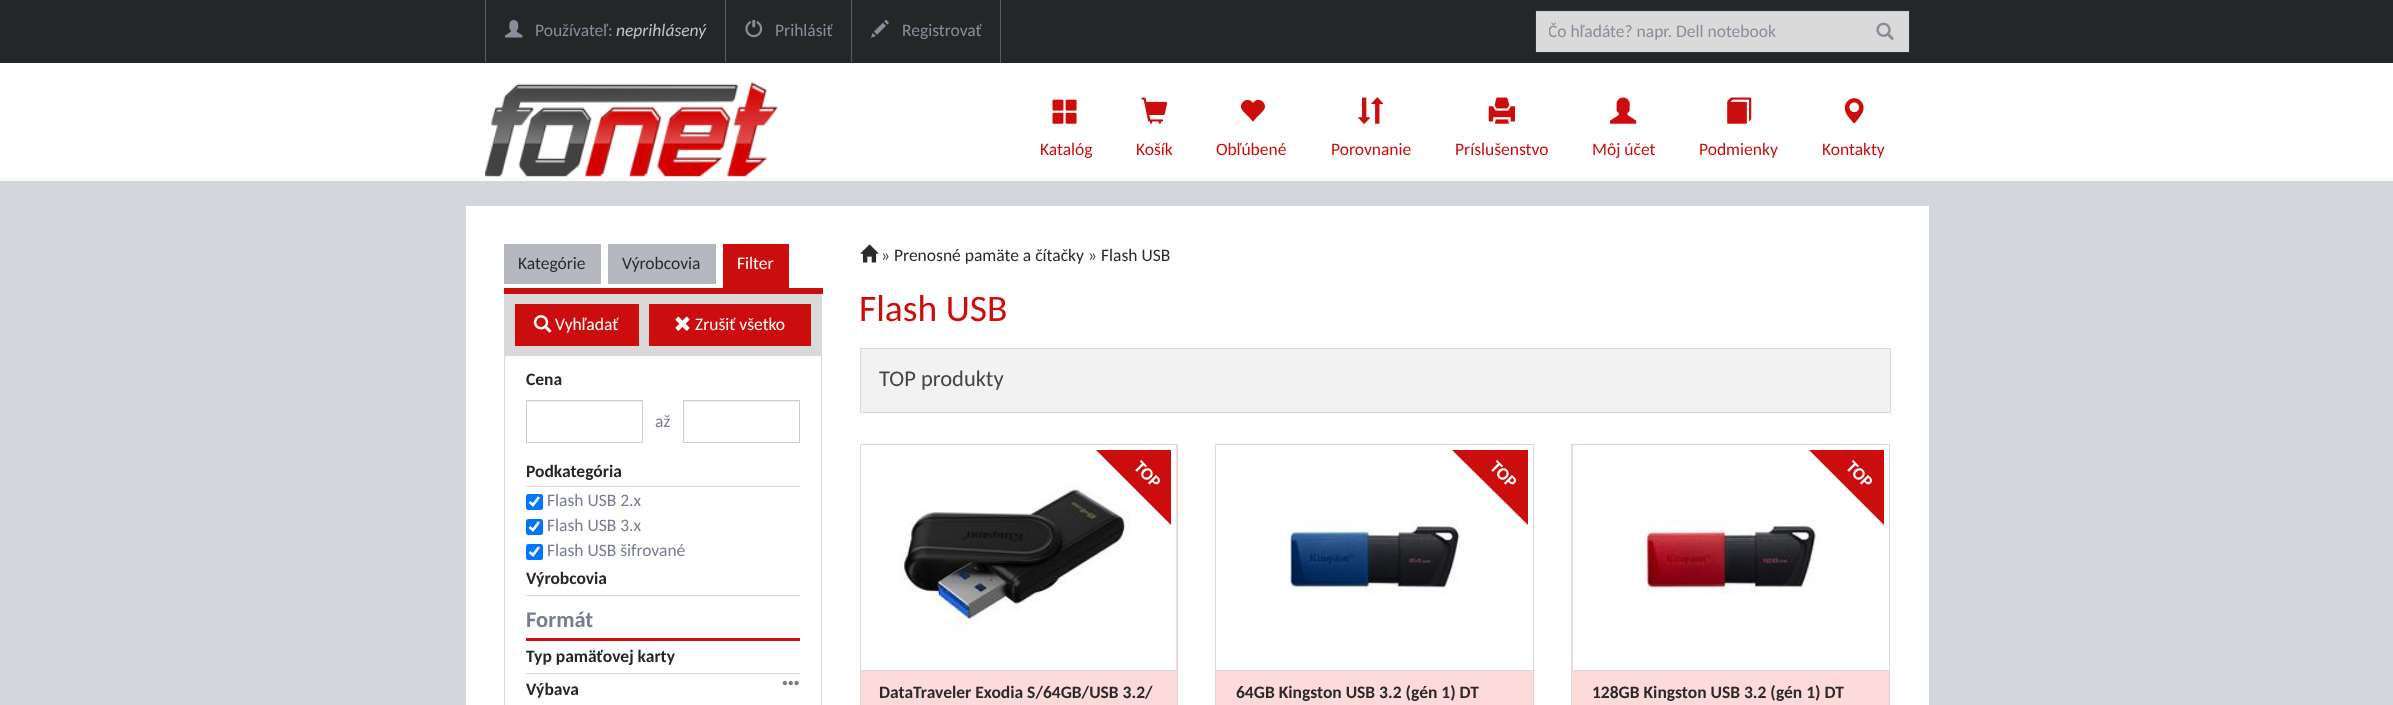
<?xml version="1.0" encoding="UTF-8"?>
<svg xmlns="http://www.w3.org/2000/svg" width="2393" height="705">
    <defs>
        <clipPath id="clip1"><rect x="1549" y="21" width="316" height="22"/></clipPath>
    </defs>
    <rect width="100%" height="100%" fill="#D3D6DB"/>
    <rect x="0" y="0" width="2393" height="63" fill="#242627"/>
    <rect x="485" y="0" width="1" height="63" fill="#565B67"/>
    <image x="505" y="20" width="18" height="18" href="img_01.png"/>
    <text x="535" y="36" font-family="Carlito" font-size="17.5" fill="#888D9B">Používateľ:</text>
    <text x="616" y="36" font-family="Carlito" font-size="17.5" font-style="italic" fill="#BFC2CA">neprihlásený</text>
    <rect x="725" y="0" width="1" height="63" fill="#565B67"/>
    <image x="745" y="20" width="18" height="18" href="img_02.png"/>
    <text x="775" y="36" font-family="Carlito" font-size="17.5" fill="#888D9B">Prihlásiť</text>
    <rect x="1000" y="0" width="1" height="63" fill="#565B67"/>
    <rect x="851" y="0" width="1" height="63" fill="#565B67"/>
    <image x="871" y="20" width="18" height="18" href="img_03.png"/>
    <text x="902" y="36" font-family="Carlito" font-size="17.5" fill="#888D9B">Registrovať</text>
    <rect x="1536" y="12" width="373" height="40" fill="#DBDADA"/>
    <rect x="1536" y="11" width="373" height="1" fill="#CBCACA"/>
    <rect x="1535.5" y="10.5" width="374" height="42" fill="none" stroke="#2C323F"/>
    <g clip-path="url(#clip1)">
        <text x="1548" y="37" font-family="Carlito" font-size="17.5" fill="#888D9B">Čo hľadáte? napr. Dell notebook</text>
    </g>
    <image x="1876" y="22" width="18" height="18" href="img_04.png"/>
    <rect x="0" y="63" width="2393" height="118" fill="#FFFFFF"/>
    <image x="485" y="82" width="293" height="95" href="img_05.png"/>
    <image x="1052" y="99" width="25" height="25" href="img_06.png"/>
    <text x="1040" y="155" font-family="Carlito" font-size="17.5" fill="#CC0D0D">Katalóg</text>
    <image x="1141" y="97" width="27" height="27" href="img_07.png"/>
    <text x="1136" y="155" font-family="Carlito" font-size="17.5" fill="#CC0D0D">Košík</text>
    <image x="1240" y="99" width="25" height="23" href="img_08.png"/>
    <text x="1216" y="155" font-family="Carlito" font-size="17.5" fill="#CC0D0D">Obľúbené</text>
    <image x="1358" y="97" width="26" height="27" href="img_09.png"/>
    <text x="1331" y="155" font-family="Carlito" font-size="17.5" fill="#CC0D0D">Porovnanie</text>
    <image x="1488" y="97" width="27" height="27" href="img_10.png"/>
    <text x="1455" y="155" font-family="Carlito" font-size="17.5" fill="#CC0D0D">Príslušenstvo</text>
    <image x="1610" y="97" width="27" height="27" href="img_11.png"/>
    <text x="1592" y="155" font-family="Carlito" font-size="17.5" fill="#CC0D0D">Môj účet</text>
    <image x="1727" y="97" width="25" height="27" href="img_12.png"/>
    <text x="1699" y="155" font-family="Carlito" font-size="17.5" fill="#CC0D0D">Podmienky</text>
    <image x="1844" y="98" width="20" height="26" href="img_13.png"/>
    <text x="1822" y="155" font-family="Carlito" font-size="17.5" fill="#CC0D0D">Kontakty</text>
    <rect x="466" y="206" width="1463" height="499" fill="#FFFFFF"/>
    <rect x="504" y="288" width="319" height="6" fill="#CC0D0D"/>
    <rect x="504" y="244" width="97" height="40" fill="#B5B9BF"/>
    <text x="518" y="269" font-family="Carlito" font-size="17.5" fill="#2A2A2A">Kategórie</text>
    <rect x="608" y="244" width="108" height="40" fill="#B5B9BF"/>
    <text x="622" y="269" font-family="Carlito" font-size="17.5" fill="#2A2A2A">Výrobcovia</text>
    <rect x="723" y="244" width="66" height="44" fill="#CC0D0D"/>
    <text x="737" y="269" font-family="Carlito" font-size="17.5" fill="#FFFFFF">Filter</text>
    <rect x="821" y="294" width="1" height="411" fill="#D9D9D9"/>
    <rect x="504" y="294" width="1" height="411" fill="#D9D9D9"/>
    <rect x="505" y="294" width="316" height="62" fill="#D9D9D9"/>
    <rect x="515" y="304" width="124" height="42" fill="#CC0D0D"/>
    <image x="533" y="315" width="19" height="18" href="img_14.png"/>
    <text x="555" y="330" font-family="Carlito" font-size="17.5" fill="#FFFFFF">Vyhľadať</text>
    <rect x="649" y="304" width="162" height="42" fill="#CC0D0D"/>
    <image x="675" y="316" width="15" height="15" href="img_15.png"/>
    <text x="695" y="330" font-family="Carlito" font-size="17.5" fill="#FFFFFF">Zrušiť všetko</text>
    <text x="526" y="385" font-family="Carlito" font-size="17.5" font-weight="700" fill="#242627">Cena</text>
    <rect x="528" y="401" width="113" height="1" fill="#ECECEC"/>
    <rect x="526.5" y="400.5" width="116" height="42" fill="none" stroke="#CCCCCC"/>
    <text x="655" y="427" font-family="Carlito" font-size="17.5" fill="#777D8C">až</text>
    <rect x="684" y="401" width="115" height="1" fill="#ECECEC"/>
    <rect x="683.5" y="400.5" width="116" height="42" fill="none" stroke="#CCCCCC"/>
    <rect x="526" y="486" width="274" height="1" fill="#D9D9D9"/>
    <text x="526" y="477" font-family="Carlito" font-size="17.5" font-weight="700" fill="#242627">Podkategória</text>
    <rect x="526" y="494" width="17" height="16" rx="2.5" fill="#0075FF"/>
    <path d="M 529.5 502 L 533 505 L 539 497" fill="none" stroke="#FFFFFF" stroke-width="2.6"/>
    <text x="547" y="506" font-family="Carlito" font-size="17.5" fill="#777D8C">Flash USB 2.x</text>
    <rect x="526" y="519" width="17" height="16" rx="2.5" fill="#0075FF"/>
    <path d="M 529.5 527 L 533 530 L 539 522" fill="none" stroke="#FFFFFF" stroke-width="2.6"/>
    <text x="547" y="531" font-family="Carlito" font-size="17.5" fill="#777D8C">Flash USB 3.x</text>
    <rect x="526" y="544" width="17" height="16" rx="2.5" fill="#0075FF"/>
    <path d="M 529.5 552 L 533 555 L 539 547" fill="none" stroke="#FFFFFF" stroke-width="2.6"/>
    <text x="547" y="556" font-family="Carlito" font-size="17.5" fill="#777D8C">Flash USB šifrované</text>
    <rect x="526" y="595" width="274" height="1" fill="#D9D9D9"/>
    <text x="526" y="584" font-family="Carlito" font-size="17.5" font-weight="700" fill="#242627">Výrobcovia</text>
    <rect x="526" y="638" width="274" height="3" fill="#CC0D0D"/>
    <text x="526" y="627" font-family="Carlito" font-size="22.5" font-weight="700" fill="#777D8C">Formát</text>
    <rect x="526" y="673" width="274" height="1" fill="#D9D9D9"/>
    <text font-family="Carlito" font-size="17.5" font-weight="700" fill="#242627">
        <tspan x="526" y="662">Typ pamäťovej karty</tspan>
        <tspan x="526" y="695">Výbava</tspan>
    </text>
    <image x="782" y="680" width="17" height="6" href="img_16.png"/>
    <image x="860" y="244" width="19" height="19" href="img_17.png"/>
    <text x="881" y="261" font-family="Carlito" font-size="17.5" fill="#444444">»</text>
    <text x="894" y="261" font-family="Carlito" font-size="17.5" fill="#2A2A2A">Prenosné pamäte a čítačky</text>
    <text x="1088" y="261" font-family="Carlito" font-size="17.5" fill="#444444">»</text>
    <text x="1101" y="261" font-family="Carlito" font-size="17.5" fill="#2A2A2A">Flash USB</text>
    <text x="859" y="321" font-family="Carlito" font-size="37.5" fill="#CC0D0D">Flash USB</text>
    <rect x="860.5" y="348.5" width="1030" height="64" fill="#F2F2F2" stroke="#D9D9D9"/>
    <text x="879" y="386" font-family="Carlito" font-size="22.5" fill="#444444">TOP produkty</text>
    <rect x="860.5" y="444.5" width="317" height="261" fill="#FDDBDB" stroke="#D9D9D9"/>
    <rect x="861" y="445" width="315" height="225" fill="#FFFFFF"/>
    <image x="899" y="484" width="231" height="147" href="img_18.png"/>
    <path d="M 1171 450 V 525 L 1096 450 Z" fill="#CC0D0D"/>
    <text x="1133" y="468" transform="rotate(45 1133 468)" font-family="Carlito" font-size="17.5" font-weight="700" fill="#FFFFFF">TOP</text>
    <rect x="861" y="670" width="315" height="1" fill="#D9D9D9"/>
    <text x="879" y="698" font-family="Carlito" font-size="17.5" font-weight="700" fill="#2A2A2A">DataTraveler Exodia S/64GB/USB 3.2/</text>
    <rect x="1216" y="671" width="317" height="34" fill="#FDDBDB"/>
    <rect x="1215.5" y="444.5" width="318" height="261" fill="none" stroke="#D9D9D9"/>
    <image x="1290" y="519" width="176" height="75" href="img_19.png"/>
    <path d="M 1528 450 V 525 L 1452 450 Z" fill="#CC0D0D"/>
    <text x="1489" y="468" transform="rotate(45 1489 468)" font-family="Carlito" font-size="17.5" font-weight="700" fill="#FFFFFF">TOP</text>
    <rect x="1216" y="670" width="317" height="1" fill="#D9D9D9"/>
    <text x="1236" y="698" font-family="Carlito" font-size="17.5" font-weight="700" fill="#2A2A2A">64GB Kingston USB 3.2 (gén 1) DT</text>
    <rect x="1571.5" y="444.5" width="318" height="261" fill="#FDDBDB" stroke="#D9D9D9"/>
    <rect x="1573" y="445" width="316" height="225" fill="#FFFFFF"/>
    <image x="1646" y="519" width="175" height="75" href="img_20.png"/>
    <path d="M 1884 450 V 525 L 1809 450 Z" fill="#CC0D0D"/>
    <text x="1845" y="468" transform="rotate(45 1845 468)" font-family="Carlito" font-size="17.5" font-weight="700" fill="#FFFFFF">TOP</text>
    <rect x="1573" y="670" width="316" height="1" fill="#D9D9D9"/>
    <text x="1592" y="698" font-family="Carlito" font-size="17.5" font-weight="700" fill="#2A2A2A">128GB Kingston USB 3.2 (gén 1) DT</text>
</svg>
